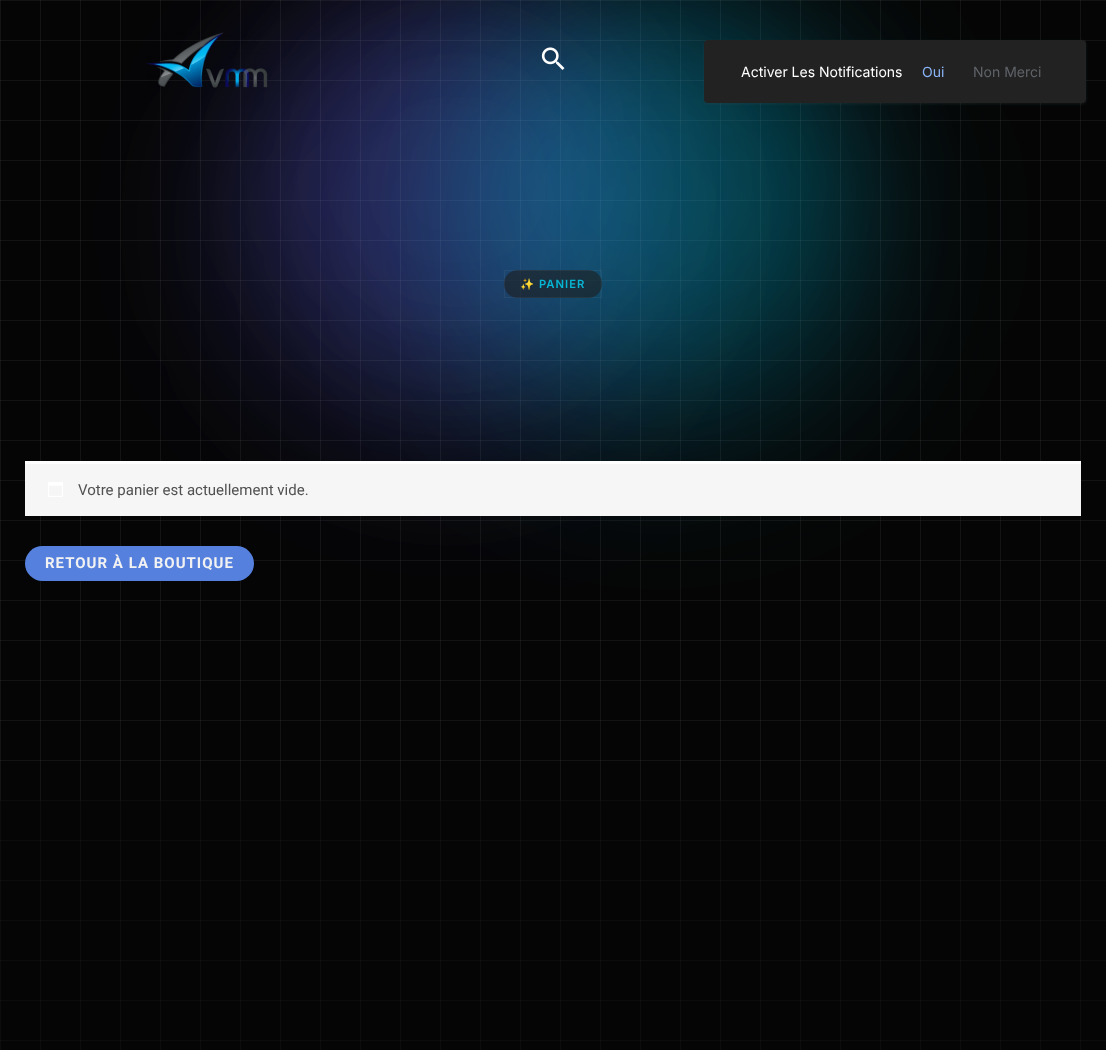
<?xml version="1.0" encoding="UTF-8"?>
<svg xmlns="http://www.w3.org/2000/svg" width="1106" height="1050">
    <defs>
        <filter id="blur1" x="-50%" y="-200%" width="200%" height="500%"><feGaussianBlur stdDeviation="80"/></filter>
        <filter id="blur2" x="-50%" y="-200%" width="200%" height="500%"><feGaussianBlur stdDeviation="64"/></filter>
        <filter id="blur3" x="-50%" y="-200%" width="200%" height="500%"><feGaussianBlur stdDeviation="1.5"/></filter>
    </defs>
    <rect width="100%" height="100%" fill="#050505"/>
    <image x="0" y="0" width="1106" height="1041" href="img_01.png"/>
    <image x="0" y="0" width="1081" height="1050" href="img_02.png"/>
    <rect x="221" y="0" width="450" height="450" rx="225" fill="#6366F1" fill-opacity="0.2" filter="url(#blur1)"/>
    <rect x="277" y="0" width="360" height="360" rx="180" fill="#6366F1" fill-opacity="0.2" filter="url(#blur2)"/>
    <rect x="470" y="0" width="360" height="360" rx="180" fill="#06B6D4" fill-opacity="0.2" filter="url(#blur2)"/>
    <rect x="0" y="0" width="1106" height="1" fill="#FFFFFF" fill-opacity="0.03"/>
    <rect x="0" y="40" width="1106" height="1" fill="#FFFFFF" fill-opacity="0.03"/>
    <rect x="0" y="80" width="1106" height="1" fill="#FFFFFF" fill-opacity="0.03"/>
    <rect x="0" y="120" width="1106" height="1" fill="#FFFFFF" fill-opacity="0.03"/>
    <rect x="0" y="160" width="1106" height="1" fill="#FFFFFF" fill-opacity="0.03"/>
    <rect x="0" y="200" width="1106" height="1" fill="#FFFFFF" fill-opacity="0.03"/>
    <rect x="0" y="240" width="1106" height="1" fill="#FFFFFF" fill-opacity="0.03"/>
    <rect x="0" y="280" width="1106" height="1" fill="#FFFFFF" fill-opacity="0.03"/>
    <rect x="0" y="320" width="1106" height="1" fill="#FFFFFF" fill-opacity="0.03"/>
    <rect x="0" y="360" width="1106" height="1" fill="#FFFFFF" fill-opacity="0.03"/>
    <rect x="0" y="400" width="1106" height="1" fill="#FFFFFF" fill-opacity="0.03"/>
    <rect x="0" y="440" width="1106" height="1" fill="#FFFFFF" fill-opacity="0.03"/>
    <rect x="0" y="480" width="1106" height="1" fill="#FFFFFF" fill-opacity="0.03"/>
    <rect x="0" y="520" width="1106" height="1" fill="#FFFFFF" fill-opacity="0.03"/>
    <rect x="0" y="560" width="1106" height="1" fill="#FFFFFF" fill-opacity="0.03"/>
    <rect x="0" y="600" width="1106" height="1" fill="#FFFFFF" fill-opacity="0.03"/>
    <rect x="0" y="640" width="1106" height="1" fill="#FFFFFF" fill-opacity="0.03"/>
    <rect x="0" y="680" width="1106" height="1" fill="#FFFFFF" fill-opacity="0.03"/>
    <rect x="0" y="720" width="1106" height="1" fill="#FFFFFF" fill-opacity="0.03"/>
    <rect x="0" y="760" width="1106" height="1" fill="#FFFFFF" fill-opacity="0.03"/>
    <image x="0" y="0" width="1081" height="800" href="img_05.png"/>
    <rect x="435" y="0" width="450" height="450" rx="225" fill="#06B6D4" fill-opacity="0.2" filter="url(#blur1)"/>
    <rect x="704" y="41" width="382" height="63" rx="4" fill="#3C4043" fill-opacity="0.3" filter="url(#blur3)"/>
    <rect x="704" y="40" width="382" height="63" rx="4" fill="#222222"/>
    <text x="741" y="77" font-family="Inter" font-size="14" fill="#FFFFFF">Activer Les Notifications</text>
    <text x="922" y="77" font-family="Inter" font-size="14" fill="#8AB4F8">Oui</text>
    <text x="973" y="77" font-family="Inter" font-size="14" fill="#5F6368">Non Merci</text>
    <image x="146" y="32" width="122" height="56" href="img_03.png"/>
    <image x="541" y="47" width="24" height="23" href="img_04.png"/>
    <rect x="504" y="270" width="98" height="28" rx="14" fill="#1E1E1E" fill-opacity="0.6"/>
    <rect x="504.5" y="270.5" width="97" height="27" fill="none" stroke="#FFFFFF" stroke-opacity="0.05"/>
    <text x="520" y="288" font-family="Noto Color Emoji" font-size="11.25" font-weight="700" letter-spacing="1" fill="#06B6D4">✨</text>
    <text x="539" y="288" font-family="Inter" font-size="11.25" font-weight="600" letter-spacing="1" fill="#06B6D4">PANIER</text>
    <rect x="25" y="464" width="1056" height="52" fill="#F7F6F7"/>
    <rect x="25" y="461" width="1056" height="3" fill="#FFFFFF"/>
    <image x="48" y="482" width="15" height="15" href="img_06.png"/>
    <text x="78" y="495" font-family="Roboto" font-size="15" fill="#515151">Votre panier est actuellement vide.</text>
    <rect x="25" y="546" width="229" height="35" rx="17.5" fill="#5580DD"/>
    <text x="45" y="568" font-family="Roboto" font-size="15" font-weight="700" letter-spacing="1" fill="#F3F2F2">RETOUR À LA BOUTIQUE</text>
</svg>
